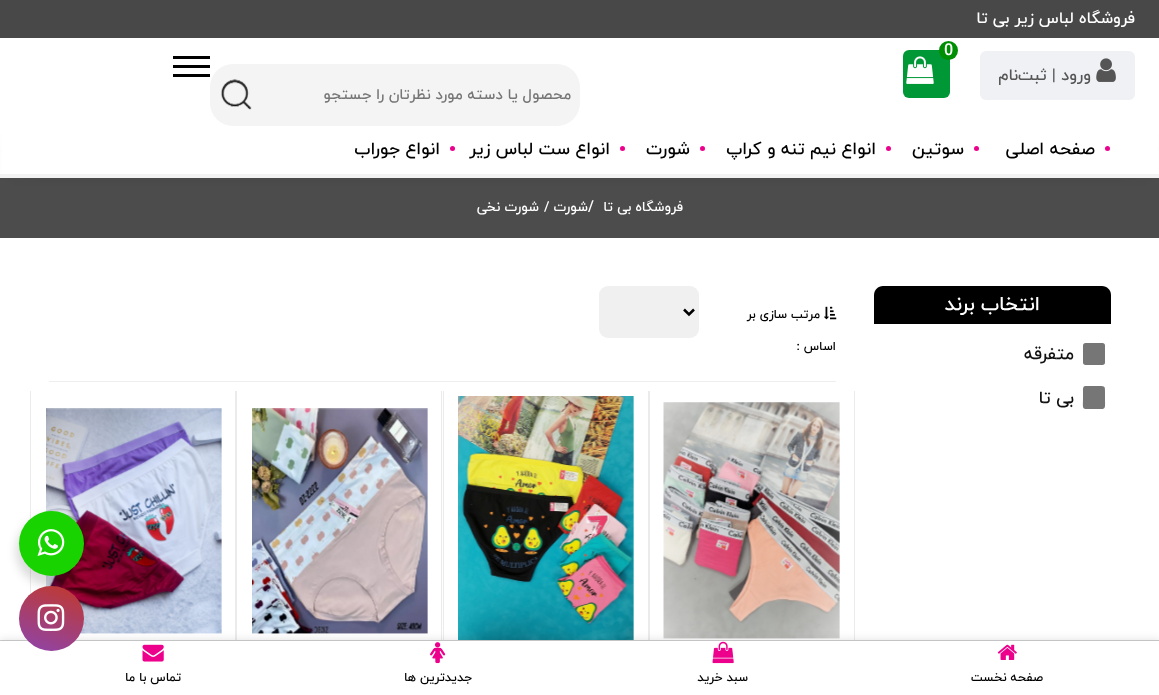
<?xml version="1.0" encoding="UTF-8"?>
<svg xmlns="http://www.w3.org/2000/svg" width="1159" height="695">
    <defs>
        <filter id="blur1" x="-50%" y="-200%" width="200%" height="500%"><feGaussianBlur stdDeviation="14.5"/></filter>
        <clipPath id="clip1"><rect x="323" y="85" width="248" height="20"/></clipPath>
        <filter id="blur2" x="-50%" y="-200%" width="200%" height="500%"><feGaussianBlur stdDeviation="5"/></filter>
        <filter id="blur3" x="-50%" y="-200%" width="200%" height="500%"><feGaussianBlur stdDeviation="4.5"/></filter>
        <linearGradient id="g1" gradientUnits="userSpaceOnUse" x1="37" y1="658" x2="65" y2="580"><stop offset="0" stop-color="#8D44AD"/><stop offset="1" stop-color="#C1392C"/></linearGradient>
    </defs>
    <rect width="100%" height="100%" fill="#FFFFFF"/>
    <rect x="0" y="0" width="1159" height="38" fill="#494849"/>
    <text x="1135" y="23" font-family="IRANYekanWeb" font-size="16.25" font-weight="500" direction="rtl" fill="#FFFFFF">فروشگاه لباس زیر بی تا</text>
    <rect x="903" y="50" width="47" height="48" rx="6" fill="#009836"/>
    <circle cx="948.5" cy="50.5" r="9.5" fill="#008E03"/>
    <text x="944" y="55" font-family="IRANYekanWeb" font-size="16.25" font-weight="500" fill="#FFFFFF">0</text>
    <image x="906" y="56" width="28" height="28" href="img_01.png"/>
    <rect x="980" y="51" width="155" height="49" rx="6" fill="#EFF1F5"/>
    <image x="1096" y="58" width="20" height="24" href="img_02.png"/>
    <text x="1091" y="80" font-family="IRANYekanWeb" font-size="16.25" font-weight="500" direction="rtl" fill="#555555">ورود | ثبت‌نام</text>
    <rect x="173" y="56" width="37" height="3" fill="#000000"/>
    <rect x="173" y="65" width="37" height="3" fill="#000000"/>
    <rect x="173" y="74" width="37" height="3" fill="#000000"/>
    <rect x="0" y="178" width="1159" height="60" fill="#4C4C4C"/>
    <rect x="20" y="153" width="1120" height="11" fill="#000000" fill-opacity="0.3" filter="url(#blur1)"/>
    <rect x="210" y="64" width="370" height="62" rx="23" fill="#F4F4F4"/>
    <g clip-path="url(#clip1)">
        <text x="571" y="99" font-family="IRANYekanWeb" font-size="15" font-weight="500" direction="rtl" fill="#757575">محصول یا دسته مورد نظرتان را جستجو کنید ...</text>
    </g>
    <image x="221" y="79" width="31" height="31" href="img_03.png"/>
    <rect x="2" y="127" width="1156" height="47" fill="#FFFFFF"/>
    <rect x="0" y="174" width="1159" height="4" fill="#F3F3F3"/>
    <circle cx="1107.5" cy="148.5" r="2.5" fill="#EC008C"/>
    <text x="1095" y="154" font-family="IRANYekanWeb" font-size="17.5" font-weight="500" direction="rtl" fill="#000000">صفحه اصلی</text>
    <circle cx="976.5" cy="148.5" r="2.5" fill="#EC008C"/>
    <text x="964" y="154" font-family="IRANYekanWeb" font-size="17.5" font-weight="500" direction="rtl" fill="#000000">سوتین</text>
    <circle cx="888.5" cy="148.5" r="2.5" fill="#EC008C"/>
    <text x="876" y="154" font-family="IRANYekanWeb" font-size="17.5" font-weight="500" direction="rtl" fill="#000000">انواع نیم تنه و کراپ</text>
    <circle cx="702.5" cy="148.5" r="2.5" fill="#EC008C"/>
    <text x="690" y="154" font-family="IRANYekanWeb" font-size="17.5" font-weight="500" direction="rtl" fill="#000000">شورت</text>
    <circle cx="622.5" cy="148.5" r="2.5" fill="#EC008C"/>
    <text x="610" y="154" font-family="IRANYekanWeb" font-size="17.5" font-weight="500" direction="rtl" fill="#000000">انواع ست لباس زیر</text>
    <circle cx="452.5" cy="148.5" r="2.5" fill="#EC008C"/>
    <text x="440" y="154" font-family="IRANYekanWeb" font-size="17.5" font-weight="500" direction="rtl" fill="#000000">انواع جوراب</text>
    <text x="683" y="211" font-family="IRANYekanWeb" font-size="13.75" font-weight="500" direction="rtl" fill="#FFFFFF">فروشگاه بی تا</text>
    <text x="588" y="211" font-family="IRANYekanWeb" font-size="15" font-weight="500" fill="#FFFFFF">/</text>
    <text x="588" y="211" font-family="IRANYekanWeb" font-size="13.75" font-weight="500" direction="rtl" fill="#FFFFFF">شورت</text>
    <text x="544" y="211" font-family="IRANYekanWeb" font-size="13.75" font-weight="500" fill="#FFFFFF">/</text>
    <text x="539" y="211" font-family="IRANYekanWeb" font-size="13.75" font-weight="500" direction="rtl" fill="#FFFFFF">شورت نخی</text>
    <path d="M 883 286 H 1102 C 1107 286 1111 290 1111 295 V 324 H 874 V 295 C 874 290 878 286 883 286 Z" fill="#000000"/>
    <text x="1040" y="310" font-family="IRANYekanWeb" font-size="20" font-weight="500" direction="rtl" fill="#FFFFFF">انتخاب برند</text>
    <path d="M 1085.5 343 H 1102.5 C 1104 343 1105 344 1105 345.5 V 362.5 C 1105 364 1104 365 1102.5 365 H 1085.5 C 1084 365 1083 364 1083 362.5 V 345.5 C 1083 344 1084 343 1085.5 343 Z" fill="#767676"/>
    <text x="1074" y="359" font-family="IRANYekanWeb" font-size="17.5" font-weight="500" direction="rtl" fill="#111111">متفرقه</text>
    <path d="M 1085.5 386 H 1099.5 C 1105 386 1105 386.5 1105 391.5 V 397.5 C 1105 410.5 1107 409 1094 409 C 1081 409 1083 410.5 1083 397.5 V 391.5 C 1083 389.5 1082.5 386 1085.5 386 Z" fill="#767676"/>
    <text x="1074" y="403" font-family="IRANYekanWeb" font-size="17.5" font-weight="500" direction="rtl" fill="#111111">بی تا</text>
    <image x="824" y="306" width="13" height="14" href="img_04.png"/>
    <text x="820" y="318" font-family="IRANYekanWeb" font-size="12.5" font-weight="500" direction="rtl" fill="#000000">مرتب ‌سازی بر</text>
    <text x="836" y="350" font-family="IRANYekanWeb" font-size="12.5" font-weight="500" direction="rtl" fill="#000000">اساس :</text>
    <rect x="599" y="286" width="100" height="52" rx="9" fill="#F0F0F0"/>
    <path d="M 684 309.5 L 689 314.5 L 694 309.5" fill="none" stroke="#000000" stroke-width="2.5"/>
    <rect x="49" y="381" width="787" height="1" fill="#EEEEEE"/>
    <rect x="854" y="391" width="1" height="249" fill="#EBEBEB"/>
    <image x="663" y="402" width="177" height="237" href="img_05.png"/>
    <rect x="648" y="391" width="2" height="249" fill="#EBEBEB"/>
    <rect x="443" y="391" width="1" height="249" fill="#EBEBEB"/>
    <image x="458" y="396" width="176" height="244" href="img_06.png"/>
    <rect x="441" y="391" width="1" height="249" fill="#EBEBEB"/>
    <image x="252" y="408" width="176" height="226" href="img_07.png"/>
    <rect x="235" y="391" width="2" height="249" fill="#EBEBEB"/>
    <rect x="30" y="391" width="1" height="204" fill="#EBEBEB"/>
    <image x="46" y="408" width="176" height="226" href="img_08.png"/>
    <rect x="16" y="516" width="70" height="70" rx="35" fill="#000000" fill-opacity="0.14" filter="url(#blur2)"/>
    <circle cx="51.5" cy="543.5" r="32.5" fill="#18D300"/>
    <image x="37" y="529" width="28" height="27" href="img_09.png"/>
    <rect x="0" y="640" width="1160" height="55" fill="#000000" fill-opacity="0.12" filter="url(#blur3)"/>
    <rect x="0" y="640" width="1159" height="55" fill="#FFFFFF"/>
    <rect x="0" y="640" width="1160" height="1" rx="0.5" fill="#C4C4C4"/>
    <circle cx="51.5" cy="618.5" r="32.5" fill="url(#g1)"/>
    <image x="37" y="604" width="28" height="27" href="img_10.png"/>
    <image x="997" y="644" width="20" height="16" href="img_11.png"/>
    <text x="1043" y="681" font-family="IRANYekanWeb" font-size="12.5" font-weight="500" direction="rtl" fill="#000000">صفحه نخست</text>
    <image x="712" y="641" width="22" height="23" href="img_12.png"/>
    <text x="748" y="681" font-family="IRANYekanWeb" font-size="12.5" font-weight="500" direction="rtl" fill="#000000">سبد خرید</text>
    <image x="430" y="642" width="16" height="22" href="img_13.png"/>
    <text x="472" y="681" font-family="IRANYekanWeb" font-size="12.5" font-weight="500" direction="rtl" fill="#000000">جدیدترین ها</text>
    <image x="142" y="644" width="22" height="18" href="img_14.png"/>
    <text x="181" y="681" font-family="IRANYekanWeb" font-size="12.5" font-weight="500" direction="rtl" fill="#000000">تماس با ما</text>
</svg>
